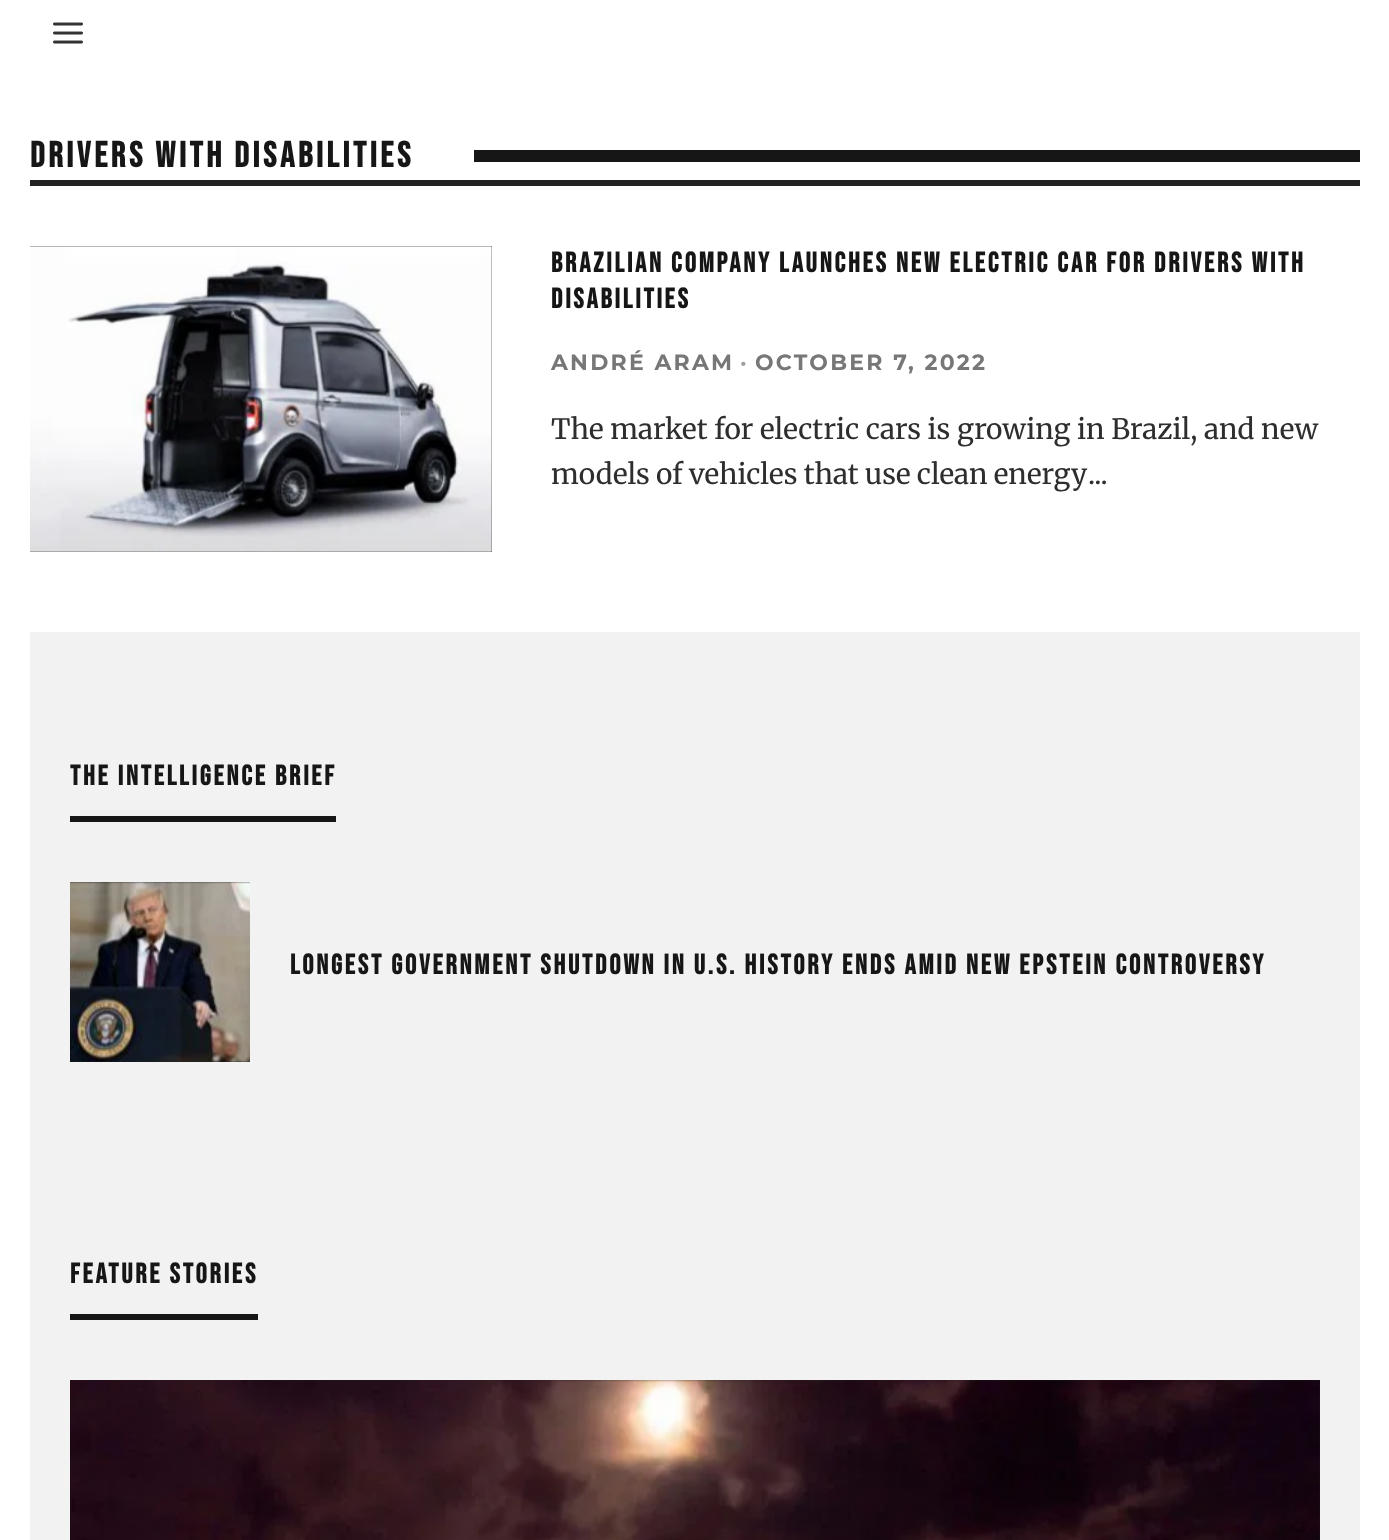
<?xml version="1.0" encoding="UTF-8"?>
<svg xmlns="http://www.w3.org/2000/svg" width="1389" height="1540">
    <rect width="100%" height="100%" fill="#FFFFFF"/>
    <image x="53" y="22" width="30" height="22" href="img_01.png"/>
    <rect x="30" y="180" width="1330" height="6" fill="#222222"/>
    <text x="30" y="167" font-family="Bebas Neue" font-size="36" font-weight="700" letter-spacing="3.6" fill="#161616">DRIVERS WITH DISABILITIES</text>
    <rect x="474" y="150" width="886" height="12" fill="#161616"/>
    <rect x="30" y="246" width="462" height="306" fill="#222222"/>
    <image x="30" y="246" width="462" height="306" href="img_02.png"/>
    <text font-family="Bebas Neue" font-size="28" font-weight="700" letter-spacing="2.8" fill="#161616">
        <tspan x="551" y="272">BRAZILIAN COMPANY LAUNCHES NEW ELECTRIC CAR FOR DRIVERS WITH</tspan>
        <tspan x="551" y="308">DISABILITIES</tspan>
    </text>
    <text x="551" y="370" font-family="Montserrat" font-size="22" font-weight="700" letter-spacing="2.25" fill="#777777">ANDRÉ ARAM</text>
    <text x="740" y="370" font-family="Montserrat" font-size="22" font-weight="700" letter-spacing="2.25" fill="#A0A0A0">·</text>
    <text x="755" y="370" font-family="Montserrat" font-size="22" font-weight="700" letter-spacing="2.25" fill="#777777">OCTOBER 7, 2022</text>
    <text font-family="Merriweather" font-size="28" fill="#2E2E2E">
        <tspan x="551" y="439">The market for electric cars is growing in Brazil, and new</tspan>
        <tspan x="551" y="484" word-spacing="-0.5">models of vehicles that use clean energy</tspan>
    </text>
    <text x="1088" y="484" font-family="Merriweather" font-size="28" fill="#2E2E2E">...</text>
    <rect x="30" y="632" width="1330" height="908" fill="#F2F2F2"/>
    <rect x="70" y="816" width="266" height="6" fill="#161616"/>
    <text x="70" y="785" font-family="Bebas Neue" font-size="28" font-weight="700" letter-spacing="2.8" fill="#161616">THE INTELLIGENCE BRIEF</text>
    <rect x="70" y="882" width="180" height="180" fill="#222222"/>
    <image x="70" y="882" width="180" height="180" href="img_03.png"/>
    <text x="290" y="974" font-family="Bebas Neue" font-size="28" font-weight="700" letter-spacing="2.8" fill="#161616">LONGEST GOVERNMENT SHUTDOWN IN U.S. HISTORY ENDS AMID NEW EPSTEIN CONTROVERSY</text>
    <rect x="70" y="1314" width="188" height="6" fill="#161616"/>
    <text x="70" y="1283" font-family="Bebas Neue" font-size="28" font-weight="700" letter-spacing="2.8" fill="#161616">FEATURE STORIES</text>
    <rect x="70" y="1380" width="1250" height="160" fill="#222222"/>
    <image x="70" y="1380" width="1250" height="160" href="img_04.png"/>
</svg>
